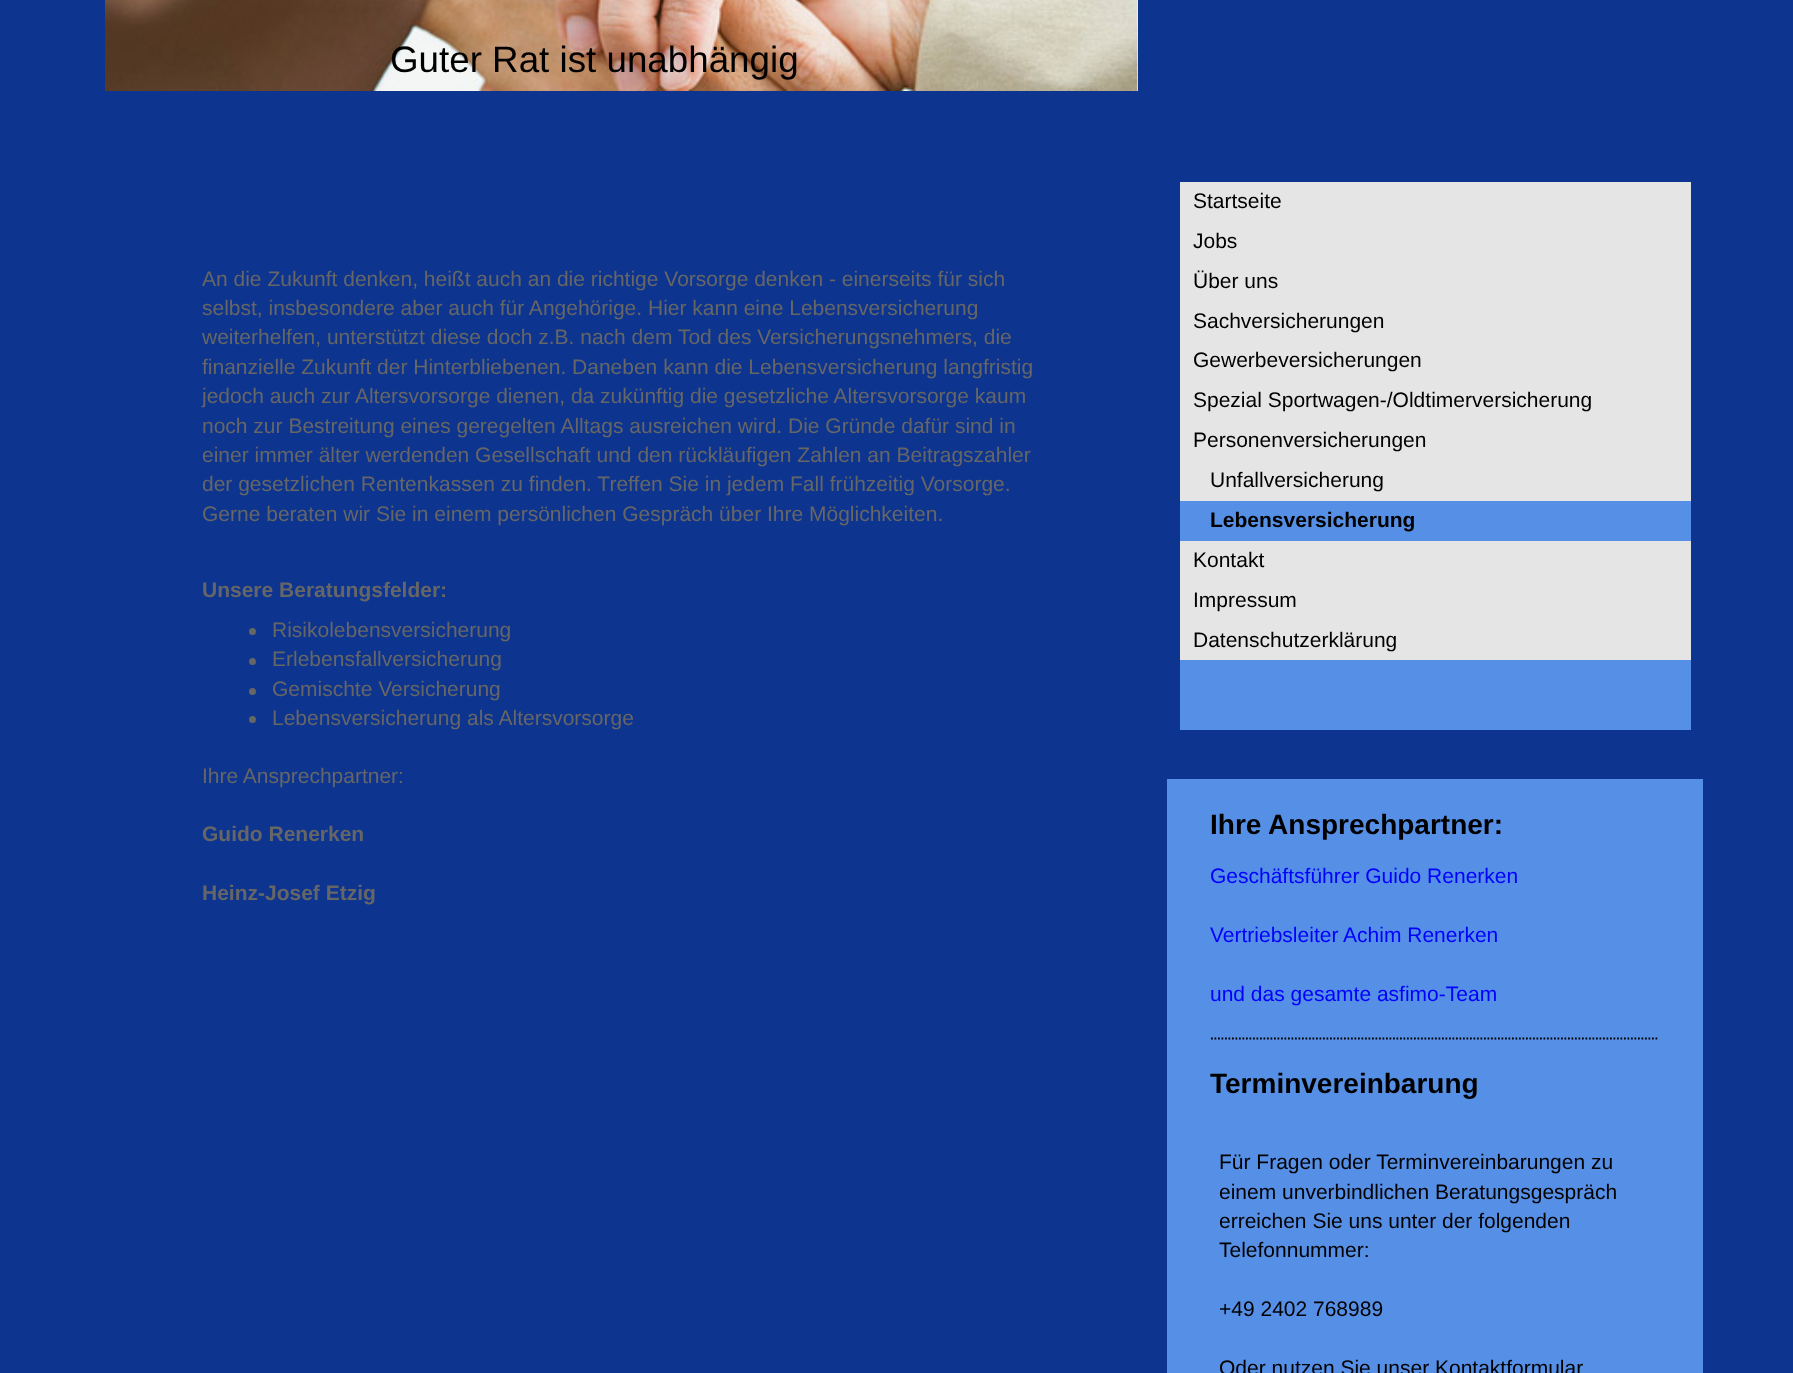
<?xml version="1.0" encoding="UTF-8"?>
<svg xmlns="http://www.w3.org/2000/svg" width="1793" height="1373">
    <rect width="100%" height="100%" fill="#0D358F"/>
    <rect x="1137" y="0" width="1" height="91" fill="#EEEEEE"/>
    <image x="105" y="0" width="1033" height="91" href="img_01.png"/>
    <text x="390" y="72" font-family="Liberation Sans" font-size="36.75" fill="#000000">Guter Rat ist unabhängig</text>
    <text font-family="Liberation Sans" font-size="21" fill="#666666">
        <tspan x="202" y="286">An die Zukunft denken, heißt auch an die richtige Vorsorge denken - einerseits für sich</tspan>
        <tspan x="202" y="315">selbst, insbesondere aber auch für Angehörige. Hier kann eine Lebensversicherung</tspan>
        <tspan x="202" y="344">weiterhelfen, unterstützt diese doch z.B. nach dem Tod des Versicherungsnehmers, die</tspan>
        <tspan x="202" y="374">finanzielle Zukunft der Hinterbliebenen. Daneben kann die Lebensversicherung langfristig</tspan>
        <tspan x="202" y="403">jedoch auch zur Altersvorsorge dienen, da zukünftig die gesetzliche Altersvorsorge kaum</tspan>
        <tspan x="202" y="433">noch zur Bestreitung eines geregelten Alltags ausreichen wird. Die Gründe dafür sind in</tspan>
        <tspan x="202" y="462">einer immer älter werdenden Gesellschaft und den rückläufigen Zahlen an Beitragszahler</tspan>
        <tspan x="202" y="491">der gesetzlichen Rentenkassen zu finden. Treffen Sie in jedem Fall frühzeitig Vorsorge.</tspan>
        <tspan x="202" y="521">Gerne beraten wir Sie in einem persönlichen Gespräch über Ihre Möglichkeiten.</tspan>
    </text>
    <text x="202" y="597" font-family="Liberation Sans" font-size="21" font-weight="700" fill="#666666">Unsere Beratungsfelder:</text>
    <circle cx="252.5" cy="631.5" r="3.5" fill="#666666"/>
    <text x="272" y="637" font-family="Liberation Sans" font-size="21" fill="#666666">Risikolebensversicherung</text>
    <circle cx="252.5" cy="661.5" r="3.5" fill="#666666"/>
    <text x="272" y="666" font-family="Liberation Sans" font-size="21" fill="#666666">Erlebensfallversicherung</text>
    <circle cx="252.5" cy="691.5" r="3.5" fill="#666666"/>
    <text x="272" y="696" font-family="Liberation Sans" font-size="21" fill="#666666">Gemischte Versicherung</text>
    <circle cx="252.5" cy="719.5" r="3.5" fill="#666666"/>
    <text x="272" y="725" font-family="Liberation Sans" font-size="21" fill="#666666">Lebensversicherung als Altersvorsorge</text>
    <text x="202" y="783" font-family="Liberation Sans" font-size="21" fill="#666666">Ihre Ansprechpartner:</text>
    <text x="202" y="841" font-family="Liberation Sans" font-size="21" font-weight="700" fill="#666666">Guido Renerken</text>
    <text x="202" y="900" font-family="Liberation Sans" font-size="21" font-weight="700" fill="#666666">Heinz-Josef Etzig</text>
    <rect x="1180" y="501" width="511" height="229" fill="#568FE6"/>
    <rect x="1180" y="182" width="511" height="319" fill="#E5E5E5"/>
    <text font-family="Liberation Sans" font-size="21" fill="#000000">
        <tspan x="1193" y="208">Startseite</tspan>
        <tspan x="1193" y="248">Jobs</tspan>
        <tspan x="1193" y="288">Über uns</tspan>
        <tspan x="1193" y="328">Sachversicherungen</tspan>
        <tspan x="1193" y="367">Gewerbeversicherungen</tspan>
        <tspan x="1193" y="407">Spezial Sportwagen-/Oldtimerversicherung</tspan>
        <tspan x="1193" y="447">Personenversicherungen</tspan>
    </text>
    <text x="1210" y="487" font-family="Liberation Sans" font-size="21" fill="#000000">Unfallversicherung</text>
    <text x="1210" y="527" font-family="Liberation Sans" font-size="21" font-weight="700" fill="#000000">Lebensversicherung</text>
    <rect x="1180" y="541" width="511" height="119" fill="#E5E5E5"/>
    <text font-family="Liberation Sans" font-size="21" fill="#000000">
        <tspan x="1193" y="567">Kontakt</tspan>
        <tspan x="1193" y="607">Impressum</tspan>
        <tspan x="1193" y="647">Datenschutzerklärung</tspan>
    </text>
    <rect x="1167" y="779" width="536" height="594" fill="#568FE6"/>
    <text x="1210" y="834" font-family="Liberation Sans" font-size="28" font-weight="700" fill="#000000">Ihre Ansprechpartner:</text>
    <text x="1210" y="883" font-family="Liberation Sans" font-size="21" fill="#0000FF">Geschäftsführer Guido Renerken</text>
    <text x="1210" y="942" font-family="Liberation Sans" font-size="21" fill="#0000FF">Vertriebsleiter Achim Renerken</text>
    <text x="1210" y="1001" font-family="Liberation Sans" font-size="21" fill="#0000FF">und das gesamte asfimo-Team</text>
    <path d="M 1211 1038.5 H 1659" fill="none" stroke="#000000" stroke-width="1.8" stroke-dasharray="1.75 1.75"/>
    <text x="1210" y="1093" font-family="Liberation Sans" font-size="28" font-weight="700" fill="#000000">Terminvereinbarung</text>
    <text font-family="Liberation Sans" font-size="21" fill="#000000">
        <tspan x="1219" y="1169">Für Fragen oder Terminvereinbarungen zu</tspan>
        <tspan x="1219" y="1199">einem unverbindlichen Beratungsgespräch</tspan>
        <tspan x="1219" y="1228">erreichen Sie uns unter der folgenden</tspan>
        <tspan x="1219" y="1257">Telefonnummer:</tspan>
    </text>
    <text x="1219" y="1316" font-family="Liberation Sans" font-size="21" fill="#000000">+49 2402 768989</text>
    <text x="1219" y="1375" font-family="Liberation Sans" font-size="21" fill="#000000">Oder nutzen Sie unser Kontaktformular</text>
</svg>
